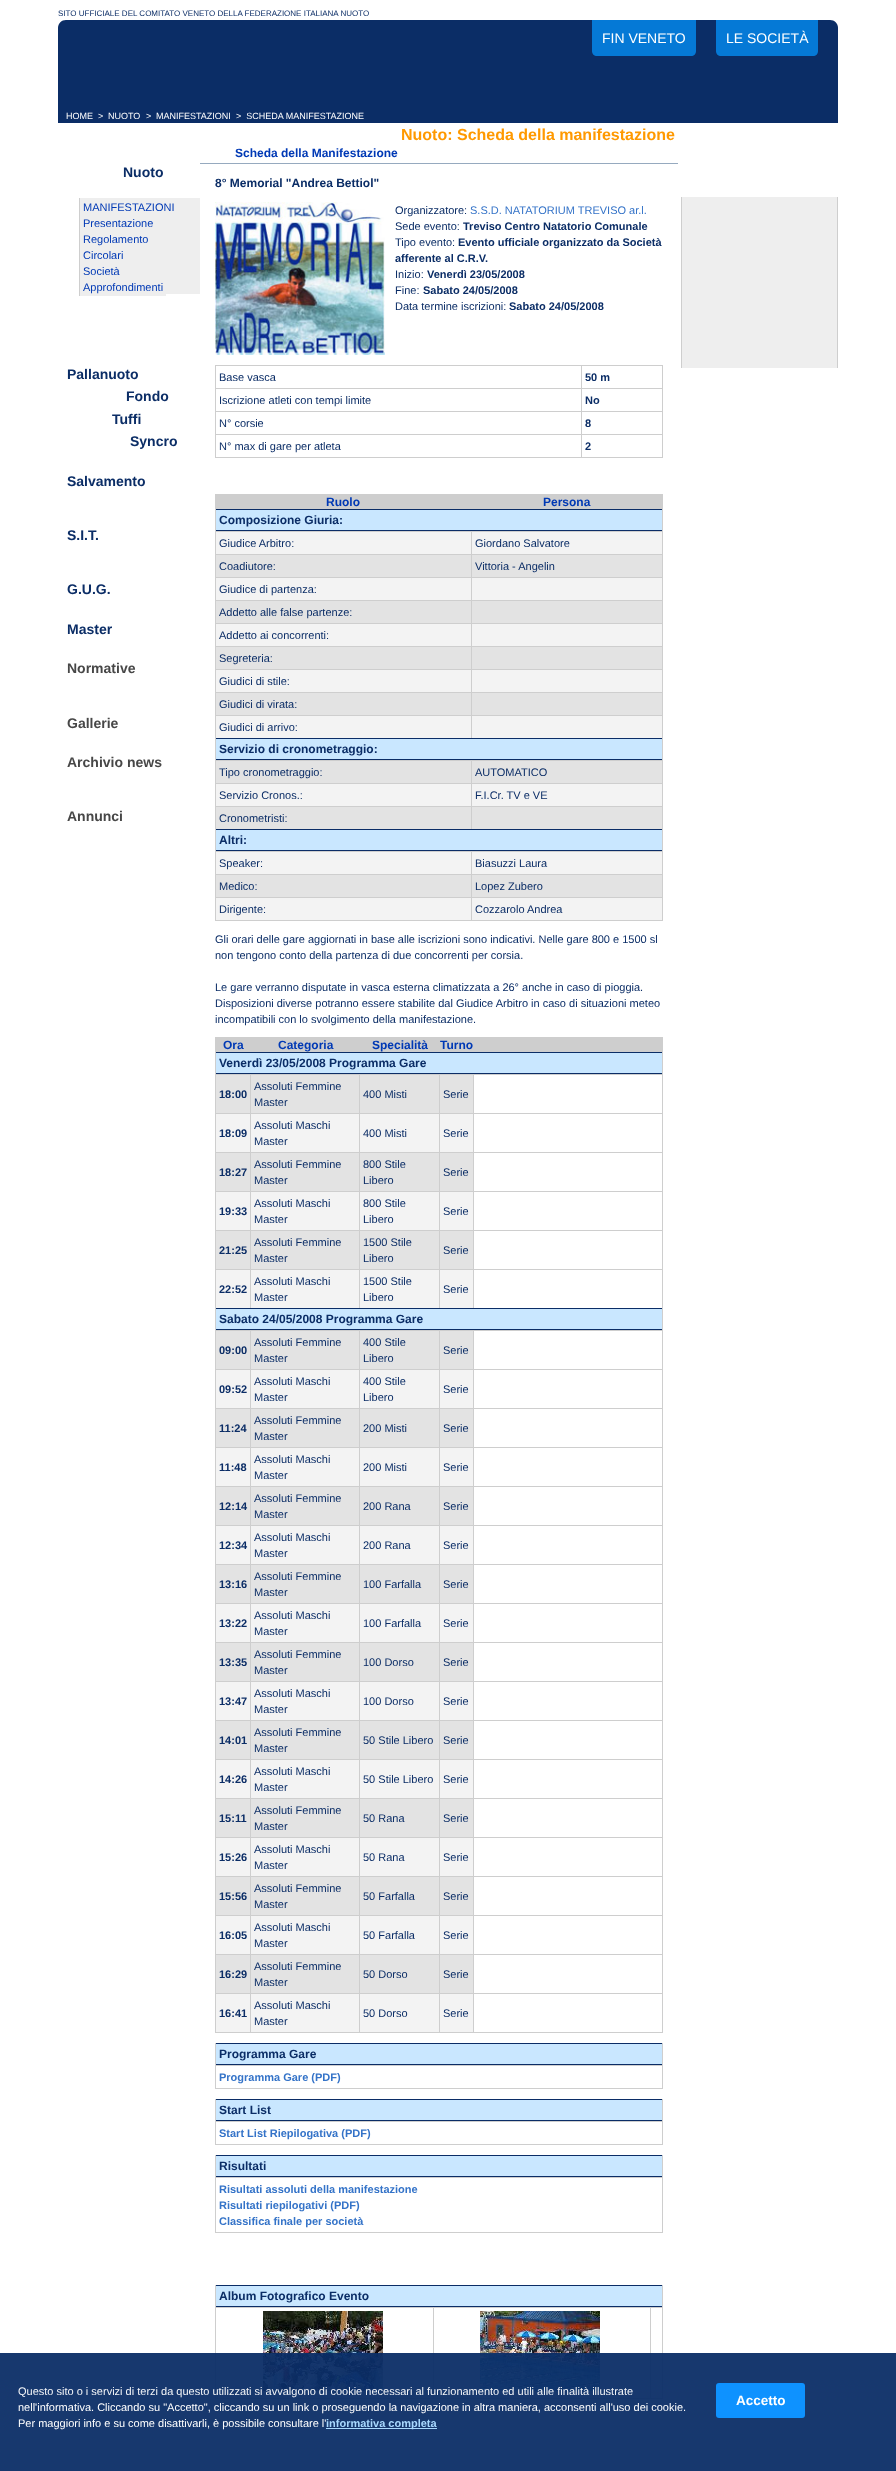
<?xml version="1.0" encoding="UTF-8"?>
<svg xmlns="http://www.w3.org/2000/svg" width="896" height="2471">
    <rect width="100%" height="100%" fill="#FFFFFF"/>
    <path d="M 66 20 H 830 C 834.5 20 838 23.5 838 28 V 110 H 58 V 28 C 58 23.5 61.5 20 66 20 Z" fill="#0B2D66"/>
    <text x="58" y="16" font-family="Liberation Sans" font-size="8" fill="#0B2D66">SITO UFFICIALE DEL COMITATO VENETO DELLA FEDERAZIONE ITALIANA NUOTO</text>
    <path d="M 592 20 H 696 V 51 C 696 54 694 56 691 56 H 597 C 594 56 592 54 592 51 Z" fill="#0579D6"/>
    <text x="602" y="43" font-family="Liberation Sans" font-size="14" fill="#FFFFFF">FIN VENETO</text>
    <path d="M 716 20 H 818 V 51 C 818 54 816 56 813 56 H 721 C 718 56 716 54 716 51 Z" fill="#0579D6"/>
    <text x="726" y="43" font-family="Liberation Sans" font-size="14" fill="#FFFFFF">LE SOCIETÀ</text>
    <rect x="58" y="110" width="780" height="13" fill="#0B2D66"/>
    <text x="66" y="119" font-family="Liberation Sans" font-size="9" fill="#FFFFFF">HOME</text>
    <text x="98" y="119" font-family="Liberation Sans" font-size="9" fill="#FFFFFF">&gt;</text>
    <text x="108" y="119" font-family="Liberation Sans" font-size="9" fill="#FFFFFF">NUOTO</text>
    <text x="146" y="119" font-family="Liberation Sans" font-size="9" fill="#FFFFFF">&gt;</text>
    <text x="156" y="119" font-family="Liberation Sans" font-size="9" fill="#FFFFFF">MANIFESTAZIONI</text>
    <text x="236" y="119" font-family="Liberation Sans" font-size="9" fill="#FFFFFF" xml:space="preserve">&gt;  SCHEDA MANIFESTAZIONE</text>
    <text x="123" y="177" font-family="Liberation Sans" font-size="14" font-weight="700" fill="#0B2D66">Nuoto</text>
    <rect x="80" y="198" width="120" height="96" fill="#EEEEEE"/>
    <text x="83" y="211" font-family="Liberation Sans" font-size="11" fill="#0039B5">MANIFESTAZIONI</text>
    <rect x="79" y="198" width="1" height="98" fill="#CECECE"/>
    <text font-family="Liberation Sans" font-size="11" fill="#0039B5">
        <tspan x="83" y="227">Presentazione</tspan>
        <tspan x="83" y="243">Regolamento</tspan>
        <tspan x="83" y="259">Circolari</tspan>
        <tspan x="83" y="275">Società</tspan>
        <tspan x="83" y="291">Approfondimenti</tspan>
    </text>
    <rect x="80" y="294" width="86" height="2" fill="#EEEEEE"/>
    <text x="67" y="379" font-family="Liberation Sans" font-size="14" font-weight="700" fill="#0B2D66">Pallanuoto</text>
    <text x="126" y="401" font-family="Liberation Sans" font-size="14" font-weight="700" fill="#0B2D66">Fondo</text>
    <text x="112" y="424" font-family="Liberation Sans" font-size="14" font-weight="700" fill="#0B2D66">Tuffi</text>
    <text x="130" y="446" font-family="Liberation Sans" font-size="14" font-weight="700" fill="#0B2D66">Syncro</text>
    <text x="67" y="486" font-family="Liberation Sans" font-size="14" font-weight="700" fill="#0B2D66">Salvamento</text>
    <text x="67" y="540" font-family="Liberation Sans" font-size="14" font-weight="700" fill="#0B2D66">S.I.T.</text>
    <text x="67" y="594" font-family="Liberation Sans" font-size="14" font-weight="700" fill="#0B2D66">G.U.G.</text>
    <text x="67" y="634" font-family="Liberation Sans" font-size="14" font-weight="700" fill="#0B2D66">Master</text>
    <text x="67" y="673" font-family="Liberation Sans" font-size="14" font-weight="700" fill="#474747">Normative</text>
    <text x="67" y="728" font-family="Liberation Sans" font-size="14" font-weight="700" fill="#474747">Gallerie</text>
    <text x="67" y="767" font-family="Liberation Sans" font-size="14" font-weight="700" fill="#474747">Archivio news</text>
    <text x="67" y="821" font-family="Liberation Sans" font-size="14" font-weight="700" fill="#474747">Annunci</text>
    <text x="401" y="140" font-family="Liberation Sans" font-size="16" font-weight="700" fill="#FF9900">Nuoto: Scheda della manifestazione</text>
    <rect x="200" y="163" width="478" height="1" fill="#96AABF"/>
    <text x="235" y="157" font-family="Liberation Sans" font-size="12" font-weight="700" fill="#0039B5">Scheda della Manifestazione</text>
    <text x="215" y="187" font-family="Liberation Sans" font-size="12" font-weight="700" fill="#0B2D66">8° Memorial "Andrea Bettiol"</text>
    <image x="215" y="202" width="170" height="153" href="img_01.png"/>
    <text x="395" y="214" font-family="Liberation Sans" font-size="11" fill="#0B2D66">Organizzatore:</text>
    <text x="470" y="214" font-family="Liberation Sans" font-size="11" fill="#3473C8">S.S.D. NATATORIUM TREVISO ar.l.</text>
    <text x="395" y="230" font-family="Liberation Sans" font-size="11" fill="#0B2D66">Sede evento:</text>
    <text x="463" y="230" font-family="Liberation Sans" font-size="11" font-weight="700" fill="#0B2D66">Treviso Centro Natatorio Comunale</text>
    <text x="395" y="246" font-family="Liberation Sans" font-size="11" fill="#0B2D66">Tipo evento:</text>
    <text x="458" y="246" font-family="Liberation Sans" font-size="11" font-weight="700" fill="#0B2D66">Evento ufficiale organizzato da Società</text>
    <text x="395" y="262" font-family="Liberation Sans" font-size="11" font-weight="700" fill="#0B2D66">afferente al C.R.V.</text>
    <text x="395" y="278" font-family="Liberation Sans" font-size="11" fill="#0B2D66">Inizio:</text>
    <text x="427" y="278" font-family="Liberation Sans" font-size="11" font-weight="700" fill="#0B2D66">Venerdì 23/05/2008</text>
    <text x="395" y="294" font-family="Liberation Sans" font-size="11" fill="#0B2D66">Fine:</text>
    <text x="423" y="294" font-family="Liberation Sans" font-size="11" font-weight="700" fill="#0B2D66">Sabato 24/05/2008</text>
    <text x="395" y="310" font-family="Liberation Sans" font-size="11" fill="#0B2D66">Data termine iscrizioni:</text>
    <text x="509" y="310" font-family="Liberation Sans" font-size="11" font-weight="700" fill="#0B2D66">Sabato 24/05/2008</text>
    <rect x="662" y="365" width="1" height="93" fill="#CECECE"/>
    <rect x="215" y="457" width="448" height="1" fill="#CECECE"/>
    <rect x="215" y="365" width="447" height="1" fill="#CECECE"/>
    <rect x="215" y="365" width="1" height="23" fill="#CECECE"/>
    <text x="219" y="381" font-family="Liberation Sans" font-size="11" fill="#0B2D66">Base vasca</text>
    <rect x="581" y="365" width="1" height="23" fill="#CECECE"/>
    <text x="585" y="381" font-family="Liberation Sans" font-size="11" font-weight="700" fill="#0B2D66">50 m</text>
    <rect x="215" y="388" width="447" height="1" fill="#CECECE"/>
    <rect x="215" y="388" width="1" height="23" fill="#CECECE"/>
    <text x="219" y="404" font-family="Liberation Sans" font-size="11" fill="#0B2D66">Iscrizione atleti con tempi limite</text>
    <rect x="581" y="388" width="1" height="23" fill="#CECECE"/>
    <text x="585" y="404" font-family="Liberation Sans" font-size="11" font-weight="700" fill="#0B2D66">No</text>
    <rect x="215" y="411" width="447" height="1" fill="#CECECE"/>
    <rect x="215" y="411" width="1" height="23" fill="#CECECE"/>
    <text x="219" y="427" font-family="Liberation Sans" font-size="11" fill="#0B2D66">N° corsie</text>
    <rect x="581" y="411" width="1" height="23" fill="#CECECE"/>
    <text x="585" y="427" font-family="Liberation Sans" font-size="11" font-weight="700" fill="#0B2D66">8</text>
    <rect x="215" y="434" width="447" height="1" fill="#CECECE"/>
    <rect x="215" y="434" width="1" height="23" fill="#CECECE"/>
    <text x="219" y="450" font-family="Liberation Sans" font-size="11" fill="#0B2D66">N° max di gare per atleta</text>
    <rect x="581" y="434" width="1" height="23" fill="#CECECE"/>
    <text x="585" y="450" font-family="Liberation Sans" font-size="11" font-weight="700" fill="#0B2D66">2</text>
    <rect x="662" y="494" width="1" height="427" fill="#CECECE"/>
    <rect x="215" y="920" width="448" height="1" fill="#CECECE"/>
    <rect x="215" y="494" width="447" height="15" fill="#CECECE"/>
    <text x="326" y="506" font-family="Liberation Sans" font-size="12" font-weight="700" fill="#0039B5">Ruolo</text>
    <text x="543" y="506" font-family="Liberation Sans" font-size="12" font-weight="700" fill="#0039B5">Persona</text>
    <rect x="216" y="510" width="446" height="20" fill="#C9E7FF"/>
    <rect x="215" y="509" width="447" height="1" fill="#0B2D66"/>
    <rect x="215" y="530" width="447" height="1" fill="#0B2D66"/>
    <rect x="215" y="509" width="1" height="22" fill="#CECECE"/>
    <text x="219" y="524" font-family="Liberation Sans" font-size="12" font-weight="700" fill="#0B2D66">Composizione Giuria:</text>
    <rect x="216" y="532" width="255" height="22" fill="#F3F3F3"/>
    <rect x="215" y="531" width="447" height="1" fill="#CECECE"/>
    <rect x="215" y="531" width="1" height="23" fill="#CECECE"/>
    <text x="219" y="547" font-family="Liberation Sans" font-size="11" fill="#0B2D66">Giudice Arbitro:</text>
    <rect x="472" y="532" width="190" height="22" fill="#F3F3F3"/>
    <rect x="471" y="531" width="1" height="23" fill="#CECECE"/>
    <text x="475" y="547" font-family="Liberation Sans" font-size="11" fill="#0B2D66">Giordano Salvatore</text>
    <rect x="216" y="555" width="255" height="22" fill="#E3E3E3"/>
    <rect x="215" y="554" width="447" height="1" fill="#CECECE"/>
    <rect x="215" y="554" width="1" height="23" fill="#CECECE"/>
    <text x="219" y="570" font-family="Liberation Sans" font-size="11" fill="#0B2D66">Coadiutore:</text>
    <rect x="472" y="555" width="190" height="22" fill="#E3E3E3"/>
    <rect x="471" y="554" width="1" height="23" fill="#CECECE"/>
    <text x="475" y="570" font-family="Liberation Sans" font-size="11" fill="#0B2D66">Vittoria - Angelin</text>
    <rect x="216" y="578" width="255" height="22" fill="#F3F3F3"/>
    <rect x="215" y="577" width="447" height="1" fill="#CECECE"/>
    <rect x="215" y="577" width="1" height="23" fill="#CECECE"/>
    <text x="219" y="593" font-family="Liberation Sans" font-size="11" fill="#0B2D66">Giudice di partenza:</text>
    <rect x="472" y="578" width="190" height="22" fill="#F3F3F3"/>
    <rect x="471" y="577" width="1" height="23" fill="#CECECE"/>
    <rect x="216" y="601" width="255" height="22" fill="#E3E3E3"/>
    <rect x="215" y="600" width="447" height="1" fill="#CECECE"/>
    <rect x="215" y="600" width="1" height="23" fill="#CECECE"/>
    <text x="219" y="616" font-family="Liberation Sans" font-size="11" fill="#0B2D66">Addetto alle false partenze:</text>
    <rect x="472" y="601" width="190" height="22" fill="#E3E3E3"/>
    <rect x="471" y="600" width="1" height="23" fill="#CECECE"/>
    <rect x="216" y="624" width="255" height="22" fill="#F3F3F3"/>
    <rect x="215" y="623" width="447" height="1" fill="#CECECE"/>
    <rect x="215" y="623" width="1" height="23" fill="#CECECE"/>
    <text x="219" y="639" font-family="Liberation Sans" font-size="11" fill="#0B2D66">Addetto ai concorrenti:</text>
    <rect x="472" y="624" width="190" height="22" fill="#F3F3F3"/>
    <rect x="471" y="623" width="1" height="23" fill="#CECECE"/>
    <rect x="216" y="647" width="255" height="22" fill="#E3E3E3"/>
    <rect x="215" y="646" width="447" height="1" fill="#CECECE"/>
    <rect x="215" y="646" width="1" height="23" fill="#CECECE"/>
    <text x="219" y="662" font-family="Liberation Sans" font-size="11" fill="#0B2D66">Segreteria:</text>
    <rect x="472" y="647" width="190" height="22" fill="#E3E3E3"/>
    <rect x="471" y="646" width="1" height="23" fill="#CECECE"/>
    <rect x="216" y="670" width="255" height="22" fill="#F3F3F3"/>
    <rect x="215" y="669" width="447" height="1" fill="#CECECE"/>
    <rect x="215" y="669" width="1" height="23" fill="#CECECE"/>
    <text x="219" y="685" font-family="Liberation Sans" font-size="11" fill="#0B2D66">Giudici di stile:</text>
    <rect x="472" y="670" width="190" height="22" fill="#F3F3F3"/>
    <rect x="471" y="669" width="1" height="23" fill="#CECECE"/>
    <rect x="216" y="693" width="255" height="22" fill="#E3E3E3"/>
    <rect x="215" y="692" width="447" height="1" fill="#CECECE"/>
    <rect x="215" y="692" width="1" height="23" fill="#CECECE"/>
    <text x="219" y="708" font-family="Liberation Sans" font-size="11" fill="#0B2D66">Giudici di virata:</text>
    <rect x="472" y="693" width="190" height="22" fill="#E3E3E3"/>
    <rect x="471" y="692" width="1" height="23" fill="#CECECE"/>
    <rect x="216" y="716" width="255" height="22" fill="#F3F3F3"/>
    <rect x="215" y="715" width="447" height="1" fill="#CECECE"/>
    <rect x="215" y="715" width="1" height="23" fill="#CECECE"/>
    <text x="219" y="731" font-family="Liberation Sans" font-size="11" fill="#0B2D66">Giudici di arrivo:</text>
    <rect x="472" y="716" width="190" height="22" fill="#F3F3F3"/>
    <rect x="471" y="715" width="1" height="23" fill="#CECECE"/>
    <rect x="216" y="739" width="446" height="20" fill="#C9E7FF"/>
    <rect x="215" y="738" width="447" height="1" fill="#0B2D66"/>
    <rect x="215" y="759" width="447" height="1" fill="#0B2D66"/>
    <rect x="215" y="738" width="1" height="22" fill="#CECECE"/>
    <text x="219" y="753" font-family="Liberation Sans" font-size="12" font-weight="700" fill="#0B2D66">Servizio di cronometraggio:</text>
    <rect x="216" y="761" width="255" height="22" fill="#E3E3E3"/>
    <rect x="215" y="760" width="447" height="1" fill="#CECECE"/>
    <rect x="215" y="760" width="1" height="23" fill="#CECECE"/>
    <text x="219" y="776" font-family="Liberation Sans" font-size="11" fill="#0B2D66">Tipo cronometraggio:</text>
    <rect x="472" y="761" width="190" height="22" fill="#E3E3E3"/>
    <rect x="471" y="760" width="1" height="23" fill="#CECECE"/>
    <text x="475" y="776" font-family="Liberation Sans" font-size="11" fill="#0B2D66">AUTOMATICO</text>
    <rect x="216" y="784" width="255" height="22" fill="#F3F3F3"/>
    <rect x="215" y="783" width="447" height="1" fill="#CECECE"/>
    <rect x="215" y="783" width="1" height="23" fill="#CECECE"/>
    <text x="219" y="799" font-family="Liberation Sans" font-size="11" fill="#0B2D66">Servizio Cronos.:</text>
    <rect x="472" y="784" width="190" height="22" fill="#F3F3F3"/>
    <rect x="471" y="783" width="1" height="23" fill="#CECECE"/>
    <text x="475" y="799" font-family="Liberation Sans" font-size="11" fill="#0B2D66">F.I.Cr. TV e VE</text>
    <rect x="216" y="807" width="255" height="22" fill="#E3E3E3"/>
    <rect x="215" y="806" width="447" height="1" fill="#CECECE"/>
    <rect x="215" y="806" width="1" height="23" fill="#CECECE"/>
    <text x="219" y="822" font-family="Liberation Sans" font-size="11" fill="#0B2D66">Cronometristi:</text>
    <rect x="472" y="807" width="190" height="22" fill="#E3E3E3"/>
    <rect x="471" y="806" width="1" height="23" fill="#CECECE"/>
    <rect x="216" y="830" width="446" height="20" fill="#C9E7FF"/>
    <rect x="215" y="829" width="447" height="1" fill="#0B2D66"/>
    <rect x="215" y="850" width="447" height="1" fill="#0B2D66"/>
    <rect x="215" y="829" width="1" height="22" fill="#CECECE"/>
    <text x="219" y="844" font-family="Liberation Sans" font-size="12" font-weight="700" fill="#0B2D66">Altri:</text>
    <rect x="216" y="852" width="255" height="22" fill="#F3F3F3"/>
    <rect x="215" y="851" width="447" height="1" fill="#CECECE"/>
    <rect x="215" y="851" width="1" height="23" fill="#CECECE"/>
    <text x="219" y="867" font-family="Liberation Sans" font-size="11" fill="#0B2D66">Speaker:</text>
    <rect x="472" y="852" width="190" height="22" fill="#F3F3F3"/>
    <rect x="471" y="851" width="1" height="23" fill="#CECECE"/>
    <text x="475" y="867" font-family="Liberation Sans" font-size="11" fill="#0B2D66">Biasuzzi Laura</text>
    <rect x="216" y="875" width="255" height="22" fill="#E3E3E3"/>
    <rect x="215" y="874" width="447" height="1" fill="#CECECE"/>
    <rect x="215" y="874" width="1" height="23" fill="#CECECE"/>
    <text x="219" y="890" font-family="Liberation Sans" font-size="11" fill="#0B2D66">Medico:</text>
    <rect x="472" y="875" width="190" height="22" fill="#E3E3E3"/>
    <rect x="471" y="874" width="1" height="23" fill="#CECECE"/>
    <text x="475" y="890" font-family="Liberation Sans" font-size="11" fill="#0B2D66">Lopez Zubero</text>
    <rect x="216" y="898" width="255" height="22" fill="#F3F3F3"/>
    <rect x="215" y="897" width="447" height="1" fill="#CECECE"/>
    <rect x="215" y="897" width="1" height="23" fill="#CECECE"/>
    <text x="219" y="913" font-family="Liberation Sans" font-size="11" fill="#0B2D66">Dirigente:</text>
    <rect x="472" y="898" width="190" height="22" fill="#F3F3F3"/>
    <rect x="471" y="897" width="1" height="23" fill="#CECECE"/>
    <text x="475" y="913" font-family="Liberation Sans" font-size="11" fill="#0B2D66">Cozzarolo Andrea</text>
    <text font-family="Liberation Sans" font-size="11" fill="#0B2D66">
        <tspan x="215" y="943">Gli orari delle gare aggiornati in base alle iscrizioni sono indicativi. Nelle gare 800 e 1500 sl</tspan>
        <tspan x="215" y="959">non tengono conto della partenza di due concorrenti per corsia.</tspan>
    </text>
    <text font-family="Liberation Sans" font-size="11" fill="#0B2D66">
        <tspan x="215" y="991">Le gare verranno disputate in vasca esterna climatizzata a 26° anche in caso di pioggia.</tspan>
        <tspan x="215" y="1007">Disposizioni diverse potranno essere stabilite dal Giudice Arbitro in caso di situazioni meteo</tspan>
        <tspan x="215" y="1023">incompatibili con lo svolgimento della manifestazione.</tspan>
    </text>
    <rect x="662" y="1037" width="1" height="996" fill="#CECECE"/>
    <rect x="215" y="2032" width="448" height="1" fill="#CECECE"/>
    <rect x="215" y="1037" width="447" height="15" fill="#CECECE"/>
    <text x="223" y="1049" font-family="Liberation Sans" font-size="12" font-weight="700" fill="#0039B5">Ora</text>
    <text x="278" y="1049" font-family="Liberation Sans" font-size="12" font-weight="700" fill="#0039B5">Categoria</text>
    <text x="372" y="1049" font-family="Liberation Sans" font-size="12" font-weight="700" fill="#0039B5">Specialità</text>
    <text x="440" y="1049" font-family="Liberation Sans" font-size="12" font-weight="700" fill="#0039B5">Turno</text>
    <rect x="216" y="1053" width="446" height="20" fill="#C9E7FF"/>
    <rect x="215" y="1052" width="447" height="1" fill="#0B2D66"/>
    <rect x="215" y="1073" width="447" height="1" fill="#0B2D66"/>
    <rect x="215" y="1052" width="1" height="22" fill="#CECECE"/>
    <text x="219" y="1067" font-family="Liberation Sans" font-size="12" font-weight="700" fill="#0B2D66">Venerdì 23/05/2008 Programma Gare</text>
    <rect x="216" y="1075" width="34" height="38" fill="#E3E3E3"/>
    <rect x="215" y="1074" width="447" height="1" fill="#CECECE"/>
    <rect x="215" y="1074" width="1" height="39" fill="#CECECE"/>
    <text x="219" y="1098" font-family="Liberation Sans" font-size="11" font-weight="700" fill="#0B2D66">18:00</text>
    <rect x="251" y="1075" width="108" height="38" fill="#E3E3E3"/>
    <rect x="250" y="1074" width="1" height="39" fill="#CECECE"/>
    <text font-family="Liberation Sans" font-size="11" fill="#0B2D66">
        <tspan x="254" y="1090">Assoluti Femmine</tspan>
        <tspan x="254" y="1106">Master</tspan>
    </text>
    <rect x="360" y="1075" width="79" height="38" fill="#E3E3E3"/>
    <rect x="359" y="1074" width="1" height="39" fill="#CECECE"/>
    <text x="363" y="1098" font-family="Liberation Sans" font-size="11" fill="#0B2D66">400 Misti</text>
    <rect x="440" y="1075" width="33" height="38" fill="#E3E3E3"/>
    <rect x="439" y="1074" width="1" height="39" fill="#CECECE"/>
    <text x="443" y="1098" font-family="Liberation Sans" font-size="11" fill="#0B2D66">Serie</text>
    <rect x="473" y="1074" width="1" height="39" fill="#CECECE"/>
    <rect x="216" y="1114" width="34" height="38" fill="#F3F3F3"/>
    <rect x="215" y="1113" width="447" height="1" fill="#CECECE"/>
    <rect x="215" y="1113" width="1" height="39" fill="#CECECE"/>
    <text x="219" y="1137" font-family="Liberation Sans" font-size="11" font-weight="700" fill="#0B2D66">18:09</text>
    <rect x="251" y="1114" width="108" height="38" fill="#F3F3F3"/>
    <rect x="250" y="1113" width="1" height="39" fill="#CECECE"/>
    <text font-family="Liberation Sans" font-size="11" fill="#0B2D66">
        <tspan x="254" y="1129">Assoluti Maschi</tspan>
        <tspan x="254" y="1145">Master</tspan>
    </text>
    <rect x="360" y="1114" width="79" height="38" fill="#F3F3F3"/>
    <rect x="359" y="1113" width="1" height="39" fill="#CECECE"/>
    <text x="363" y="1137" font-family="Liberation Sans" font-size="11" fill="#0B2D66">400 Misti</text>
    <rect x="440" y="1114" width="33" height="38" fill="#F3F3F3"/>
    <rect x="439" y="1113" width="1" height="39" fill="#CECECE"/>
    <text x="443" y="1137" font-family="Liberation Sans" font-size="11" fill="#0B2D66">Serie</text>
    <rect x="473" y="1113" width="1" height="39" fill="#CECECE"/>
    <rect x="216" y="1153" width="34" height="38" fill="#E3E3E3"/>
    <rect x="215" y="1152" width="447" height="1" fill="#CECECE"/>
    <rect x="215" y="1152" width="1" height="39" fill="#CECECE"/>
    <text x="219" y="1176" font-family="Liberation Sans" font-size="11" font-weight="700" fill="#0B2D66">18:27</text>
    <rect x="251" y="1153" width="108" height="38" fill="#E3E3E3"/>
    <rect x="250" y="1152" width="1" height="39" fill="#CECECE"/>
    <text font-family="Liberation Sans" font-size="11" fill="#0B2D66">
        <tspan x="254" y="1168">Assoluti Femmine</tspan>
        <tspan x="254" y="1184">Master</tspan>
    </text>
    <rect x="360" y="1153" width="79" height="38" fill="#E3E3E3"/>
    <rect x="359" y="1152" width="1" height="39" fill="#CECECE"/>
    <text font-family="Liberation Sans" font-size="11" fill="#0B2D66">
        <tspan x="363" y="1168">800 Stile</tspan>
        <tspan x="363" y="1184">Libero</tspan>
    </text>
    <rect x="440" y="1153" width="33" height="38" fill="#E3E3E3"/>
    <rect x="439" y="1152" width="1" height="39" fill="#CECECE"/>
    <text x="443" y="1176" font-family="Liberation Sans" font-size="11" fill="#0B2D66">Serie</text>
    <rect x="473" y="1152" width="1" height="39" fill="#CECECE"/>
    <rect x="216" y="1192" width="34" height="38" fill="#F3F3F3"/>
    <rect x="215" y="1191" width="447" height="1" fill="#CECECE"/>
    <rect x="215" y="1191" width="1" height="39" fill="#CECECE"/>
    <text x="219" y="1215" font-family="Liberation Sans" font-size="11" font-weight="700" fill="#0B2D66">19:33</text>
    <rect x="251" y="1192" width="108" height="38" fill="#F3F3F3"/>
    <rect x="250" y="1191" width="1" height="39" fill="#CECECE"/>
    <text font-family="Liberation Sans" font-size="11" fill="#0B2D66">
        <tspan x="254" y="1207">Assoluti Maschi</tspan>
        <tspan x="254" y="1223">Master</tspan>
    </text>
    <rect x="360" y="1192" width="79" height="38" fill="#F3F3F3"/>
    <rect x="359" y="1191" width="1" height="39" fill="#CECECE"/>
    <text font-family="Liberation Sans" font-size="11" fill="#0B2D66">
        <tspan x="363" y="1207">800 Stile</tspan>
        <tspan x="363" y="1223">Libero</tspan>
    </text>
    <rect x="440" y="1192" width="33" height="38" fill="#F3F3F3"/>
    <rect x="439" y="1191" width="1" height="39" fill="#CECECE"/>
    <text x="443" y="1215" font-family="Liberation Sans" font-size="11" fill="#0B2D66">Serie</text>
    <rect x="473" y="1191" width="1" height="39" fill="#CECECE"/>
    <rect x="216" y="1231" width="34" height="38" fill="#E3E3E3"/>
    <rect x="215" y="1230" width="447" height="1" fill="#CECECE"/>
    <rect x="215" y="1230" width="1" height="39" fill="#CECECE"/>
    <text x="219" y="1254" font-family="Liberation Sans" font-size="11" font-weight="700" fill="#0B2D66">21:25</text>
    <rect x="251" y="1231" width="108" height="38" fill="#E3E3E3"/>
    <rect x="250" y="1230" width="1" height="39" fill="#CECECE"/>
    <text font-family="Liberation Sans" font-size="11" fill="#0B2D66">
        <tspan x="254" y="1246">Assoluti Femmine</tspan>
        <tspan x="254" y="1262">Master</tspan>
    </text>
    <rect x="360" y="1231" width="79" height="38" fill="#E3E3E3"/>
    <rect x="359" y="1230" width="1" height="39" fill="#CECECE"/>
    <text font-family="Liberation Sans" font-size="11" fill="#0B2D66">
        <tspan x="363" y="1246">1500 Stile</tspan>
        <tspan x="363" y="1262">Libero</tspan>
    </text>
    <rect x="440" y="1231" width="33" height="38" fill="#E3E3E3"/>
    <rect x="439" y="1230" width="1" height="39" fill="#CECECE"/>
    <text x="443" y="1254" font-family="Liberation Sans" font-size="11" fill="#0B2D66">Serie</text>
    <rect x="473" y="1230" width="1" height="39" fill="#CECECE"/>
    <rect x="216" y="1270" width="34" height="38" fill="#F3F3F3"/>
    <rect x="215" y="1269" width="447" height="1" fill="#CECECE"/>
    <rect x="215" y="1269" width="1" height="39" fill="#CECECE"/>
    <text x="219" y="1293" font-family="Liberation Sans" font-size="11" font-weight="700" fill="#0B2D66">22:52</text>
    <rect x="251" y="1270" width="108" height="38" fill="#F3F3F3"/>
    <rect x="250" y="1269" width="1" height="39" fill="#CECECE"/>
    <text font-family="Liberation Sans" font-size="11" fill="#0B2D66">
        <tspan x="254" y="1285">Assoluti Maschi</tspan>
        <tspan x="254" y="1301">Master</tspan>
    </text>
    <rect x="360" y="1270" width="79" height="38" fill="#F3F3F3"/>
    <rect x="359" y="1269" width="1" height="39" fill="#CECECE"/>
    <text font-family="Liberation Sans" font-size="11" fill="#0B2D66">
        <tspan x="363" y="1285">1500 Stile</tspan>
        <tspan x="363" y="1301">Libero</tspan>
    </text>
    <rect x="440" y="1270" width="33" height="38" fill="#F3F3F3"/>
    <rect x="439" y="1269" width="1" height="39" fill="#CECECE"/>
    <text x="443" y="1293" font-family="Liberation Sans" font-size="11" fill="#0B2D66">Serie</text>
    <rect x="473" y="1269" width="1" height="39" fill="#CECECE"/>
    <rect x="216" y="1309" width="446" height="20" fill="#C9E7FF"/>
    <rect x="215" y="1308" width="447" height="1" fill="#0B2D66"/>
    <rect x="215" y="1329" width="447" height="1" fill="#0B2D66"/>
    <rect x="215" y="1308" width="1" height="22" fill="#CECECE"/>
    <text x="219" y="1323" font-family="Liberation Sans" font-size="12" font-weight="700" fill="#0B2D66">Sabato 24/05/2008 Programma Gare</text>
    <rect x="216" y="1331" width="34" height="38" fill="#E3E3E3"/>
    <rect x="215" y="1330" width="447" height="1" fill="#CECECE"/>
    <rect x="215" y="1330" width="1" height="39" fill="#CECECE"/>
    <text x="219" y="1354" font-family="Liberation Sans" font-size="11" font-weight="700" fill="#0B2D66">09:00</text>
    <rect x="251" y="1331" width="108" height="38" fill="#E3E3E3"/>
    <rect x="250" y="1330" width="1" height="39" fill="#CECECE"/>
    <text font-family="Liberation Sans" font-size="11" fill="#0B2D66">
        <tspan x="254" y="1346">Assoluti Femmine</tspan>
        <tspan x="254" y="1362">Master</tspan>
    </text>
    <rect x="360" y="1331" width="79" height="38" fill="#E3E3E3"/>
    <rect x="359" y="1330" width="1" height="39" fill="#CECECE"/>
    <text font-family="Liberation Sans" font-size="11" fill="#0B2D66">
        <tspan x="363" y="1346">400 Stile</tspan>
        <tspan x="363" y="1362">Libero</tspan>
    </text>
    <rect x="440" y="1331" width="33" height="38" fill="#E3E3E3"/>
    <rect x="439" y="1330" width="1" height="39" fill="#CECECE"/>
    <text x="443" y="1354" font-family="Liberation Sans" font-size="11" fill="#0B2D66">Serie</text>
    <rect x="473" y="1330" width="1" height="39" fill="#CECECE"/>
    <rect x="216" y="1370" width="34" height="38" fill="#F3F3F3"/>
    <rect x="215" y="1369" width="447" height="1" fill="#CECECE"/>
    <rect x="215" y="1369" width="1" height="39" fill="#CECECE"/>
    <text x="219" y="1393" font-family="Liberation Sans" font-size="11" font-weight="700" fill="#0B2D66">09:52</text>
    <rect x="251" y="1370" width="108" height="38" fill="#F3F3F3"/>
    <rect x="250" y="1369" width="1" height="39" fill="#CECECE"/>
    <text font-family="Liberation Sans" font-size="11" fill="#0B2D66">
        <tspan x="254" y="1385">Assoluti Maschi</tspan>
        <tspan x="254" y="1401">Master</tspan>
    </text>
    <rect x="360" y="1370" width="79" height="38" fill="#F3F3F3"/>
    <rect x="359" y="1369" width="1" height="39" fill="#CECECE"/>
    <text font-family="Liberation Sans" font-size="11" fill="#0B2D66">
        <tspan x="363" y="1385">400 Stile</tspan>
        <tspan x="363" y="1401">Libero</tspan>
    </text>
    <rect x="440" y="1370" width="33" height="38" fill="#F3F3F3"/>
    <rect x="439" y="1369" width="1" height="39" fill="#CECECE"/>
    <text x="443" y="1393" font-family="Liberation Sans" font-size="11" fill="#0B2D66">Serie</text>
    <rect x="473" y="1369" width="1" height="39" fill="#CECECE"/>
    <rect x="216" y="1409" width="34" height="38" fill="#E3E3E3"/>
    <rect x="215" y="1408" width="447" height="1" fill="#CECECE"/>
    <rect x="215" y="1408" width="1" height="39" fill="#CECECE"/>
    <text x="219" y="1432" font-family="Liberation Sans" font-size="11" font-weight="700" fill="#0B2D66">11:24</text>
    <rect x="251" y="1409" width="108" height="38" fill="#E3E3E3"/>
    <rect x="250" y="1408" width="1" height="39" fill="#CECECE"/>
    <text font-family="Liberation Sans" font-size="11" fill="#0B2D66">
        <tspan x="254" y="1424">Assoluti Femmine</tspan>
        <tspan x="254" y="1440">Master</tspan>
    </text>
    <rect x="360" y="1409" width="79" height="38" fill="#E3E3E3"/>
    <rect x="359" y="1408" width="1" height="39" fill="#CECECE"/>
    <text x="363" y="1432" font-family="Liberation Sans" font-size="11" fill="#0B2D66">200 Misti</text>
    <rect x="440" y="1409" width="33" height="38" fill="#E3E3E3"/>
    <rect x="439" y="1408" width="1" height="39" fill="#CECECE"/>
    <text x="443" y="1432" font-family="Liberation Sans" font-size="11" fill="#0B2D66">Serie</text>
    <rect x="473" y="1408" width="1" height="39" fill="#CECECE"/>
    <rect x="216" y="1448" width="34" height="38" fill="#F3F3F3"/>
    <rect x="215" y="1447" width="447" height="1" fill="#CECECE"/>
    <rect x="215" y="1447" width="1" height="39" fill="#CECECE"/>
    <text x="219" y="1471" font-family="Liberation Sans" font-size="11" font-weight="700" fill="#0B2D66">11:48</text>
    <rect x="251" y="1448" width="108" height="38" fill="#F3F3F3"/>
    <rect x="250" y="1447" width="1" height="39" fill="#CECECE"/>
    <text font-family="Liberation Sans" font-size="11" fill="#0B2D66">
        <tspan x="254" y="1463">Assoluti Maschi</tspan>
        <tspan x="254" y="1479">Master</tspan>
    </text>
    <rect x="360" y="1448" width="79" height="38" fill="#F3F3F3"/>
    <rect x="359" y="1447" width="1" height="39" fill="#CECECE"/>
    <text x="363" y="1471" font-family="Liberation Sans" font-size="11" fill="#0B2D66">200 Misti</text>
    <rect x="440" y="1448" width="33" height="38" fill="#F3F3F3"/>
    <rect x="439" y="1447" width="1" height="39" fill="#CECECE"/>
    <text x="443" y="1471" font-family="Liberation Sans" font-size="11" fill="#0B2D66">Serie</text>
    <rect x="473" y="1447" width="1" height="39" fill="#CECECE"/>
    <rect x="216" y="1487" width="34" height="38" fill="#E3E3E3"/>
    <rect x="215" y="1486" width="447" height="1" fill="#CECECE"/>
    <rect x="215" y="1486" width="1" height="39" fill="#CECECE"/>
    <text x="219" y="1510" font-family="Liberation Sans" font-size="11" font-weight="700" fill="#0B2D66">12:14</text>
    <rect x="251" y="1487" width="108" height="38" fill="#E3E3E3"/>
    <rect x="250" y="1486" width="1" height="39" fill="#CECECE"/>
    <text font-family="Liberation Sans" font-size="11" fill="#0B2D66">
        <tspan x="254" y="1502">Assoluti Femmine</tspan>
        <tspan x="254" y="1518">Master</tspan>
    </text>
    <rect x="360" y="1487" width="79" height="38" fill="#E3E3E3"/>
    <rect x="359" y="1486" width="1" height="39" fill="#CECECE"/>
    <text x="363" y="1510" font-family="Liberation Sans" font-size="11" fill="#0B2D66">200 Rana</text>
    <rect x="440" y="1487" width="33" height="38" fill="#E3E3E3"/>
    <rect x="439" y="1486" width="1" height="39" fill="#CECECE"/>
    <text x="443" y="1510" font-family="Liberation Sans" font-size="11" fill="#0B2D66">Serie</text>
    <rect x="473" y="1486" width="1" height="39" fill="#CECECE"/>
    <rect x="216" y="1526" width="34" height="38" fill="#F3F3F3"/>
    <rect x="215" y="1525" width="447" height="1" fill="#CECECE"/>
    <rect x="215" y="1525" width="1" height="39" fill="#CECECE"/>
    <text x="219" y="1549" font-family="Liberation Sans" font-size="11" font-weight="700" fill="#0B2D66">12:34</text>
    <rect x="251" y="1526" width="108" height="38" fill="#F3F3F3"/>
    <rect x="250" y="1525" width="1" height="39" fill="#CECECE"/>
    <text font-family="Liberation Sans" font-size="11" fill="#0B2D66">
        <tspan x="254" y="1541">Assoluti Maschi</tspan>
        <tspan x="254" y="1557">Master</tspan>
    </text>
    <rect x="360" y="1526" width="79" height="38" fill="#F3F3F3"/>
    <rect x="359" y="1525" width="1" height="39" fill="#CECECE"/>
    <text x="363" y="1549" font-family="Liberation Sans" font-size="11" fill="#0B2D66">200 Rana</text>
    <rect x="440" y="1526" width="33" height="38" fill="#F3F3F3"/>
    <rect x="439" y="1525" width="1" height="39" fill="#CECECE"/>
    <text x="443" y="1549" font-family="Liberation Sans" font-size="11" fill="#0B2D66">Serie</text>
    <rect x="473" y="1525" width="1" height="39" fill="#CECECE"/>
    <rect x="216" y="1565" width="34" height="38" fill="#E3E3E3"/>
    <rect x="215" y="1564" width="447" height="1" fill="#CECECE"/>
    <rect x="215" y="1564" width="1" height="39" fill="#CECECE"/>
    <text x="219" y="1588" font-family="Liberation Sans" font-size="11" font-weight="700" fill="#0B2D66">13:16</text>
    <rect x="251" y="1565" width="108" height="38" fill="#E3E3E3"/>
    <rect x="250" y="1564" width="1" height="39" fill="#CECECE"/>
    <text font-family="Liberation Sans" font-size="11" fill="#0B2D66">
        <tspan x="254" y="1580">Assoluti Femmine</tspan>
        <tspan x="254" y="1596">Master</tspan>
    </text>
    <rect x="360" y="1565" width="79" height="38" fill="#E3E3E3"/>
    <rect x="359" y="1564" width="1" height="39" fill="#CECECE"/>
    <text x="363" y="1588" font-family="Liberation Sans" font-size="11" fill="#0B2D66">100 Farfalla</text>
    <rect x="440" y="1565" width="33" height="38" fill="#E3E3E3"/>
    <rect x="439" y="1564" width="1" height="39" fill="#CECECE"/>
    <text x="443" y="1588" font-family="Liberation Sans" font-size="11" fill="#0B2D66">Serie</text>
    <rect x="473" y="1564" width="1" height="39" fill="#CECECE"/>
    <rect x="216" y="1604" width="34" height="38" fill="#F3F3F3"/>
    <rect x="215" y="1603" width="447" height="1" fill="#CECECE"/>
    <rect x="215" y="1603" width="1" height="39" fill="#CECECE"/>
    <text x="219" y="1627" font-family="Liberation Sans" font-size="11" font-weight="700" fill="#0B2D66">13:22</text>
    <rect x="251" y="1604" width="108" height="38" fill="#F3F3F3"/>
    <rect x="250" y="1603" width="1" height="39" fill="#CECECE"/>
    <text font-family="Liberation Sans" font-size="11" fill="#0B2D66">
        <tspan x="254" y="1619">Assoluti Maschi</tspan>
        <tspan x="254" y="1635">Master</tspan>
    </text>
    <rect x="360" y="1604" width="79" height="38" fill="#F3F3F3"/>
    <rect x="359" y="1603" width="1" height="39" fill="#CECECE"/>
    <text x="363" y="1627" font-family="Liberation Sans" font-size="11" fill="#0B2D66">100 Farfalla</text>
    <rect x="440" y="1604" width="33" height="38" fill="#F3F3F3"/>
    <rect x="439" y="1603" width="1" height="39" fill="#CECECE"/>
    <text x="443" y="1627" font-family="Liberation Sans" font-size="11" fill="#0B2D66">Serie</text>
    <rect x="473" y="1603" width="1" height="39" fill="#CECECE"/>
    <rect x="216" y="1643" width="34" height="38" fill="#E3E3E3"/>
    <rect x="215" y="1642" width="447" height="1" fill="#CECECE"/>
    <rect x="215" y="1642" width="1" height="39" fill="#CECECE"/>
    <text x="219" y="1666" font-family="Liberation Sans" font-size="11" font-weight="700" fill="#0B2D66">13:35</text>
    <rect x="251" y="1643" width="108" height="38" fill="#E3E3E3"/>
    <rect x="250" y="1642" width="1" height="39" fill="#CECECE"/>
    <text font-family="Liberation Sans" font-size="11" fill="#0B2D66">
        <tspan x="254" y="1658">Assoluti Femmine</tspan>
        <tspan x="254" y="1674">Master</tspan>
    </text>
    <rect x="360" y="1643" width="79" height="38" fill="#E3E3E3"/>
    <rect x="359" y="1642" width="1" height="39" fill="#CECECE"/>
    <text x="363" y="1666" font-family="Liberation Sans" font-size="11" fill="#0B2D66">100 Dorso</text>
    <rect x="440" y="1643" width="33" height="38" fill="#E3E3E3"/>
    <rect x="439" y="1642" width="1" height="39" fill="#CECECE"/>
    <text x="443" y="1666" font-family="Liberation Sans" font-size="11" fill="#0B2D66">Serie</text>
    <rect x="473" y="1642" width="1" height="39" fill="#CECECE"/>
    <rect x="216" y="1682" width="34" height="38" fill="#F3F3F3"/>
    <rect x="215" y="1681" width="447" height="1" fill="#CECECE"/>
    <rect x="215" y="1681" width="1" height="39" fill="#CECECE"/>
    <text x="219" y="1705" font-family="Liberation Sans" font-size="11" font-weight="700" fill="#0B2D66">13:47</text>
    <rect x="251" y="1682" width="108" height="38" fill="#F3F3F3"/>
    <rect x="250" y="1681" width="1" height="39" fill="#CECECE"/>
    <text font-family="Liberation Sans" font-size="11" fill="#0B2D66">
        <tspan x="254" y="1697">Assoluti Maschi</tspan>
        <tspan x="254" y="1713">Master</tspan>
    </text>
    <rect x="360" y="1682" width="79" height="38" fill="#F3F3F3"/>
    <rect x="359" y="1681" width="1" height="39" fill="#CECECE"/>
    <text x="363" y="1705" font-family="Liberation Sans" font-size="11" fill="#0B2D66">100 Dorso</text>
    <rect x="440" y="1682" width="33" height="38" fill="#F3F3F3"/>
    <rect x="439" y="1681" width="1" height="39" fill="#CECECE"/>
    <text x="443" y="1705" font-family="Liberation Sans" font-size="11" fill="#0B2D66">Serie</text>
    <rect x="473" y="1681" width="1" height="39" fill="#CECECE"/>
    <rect x="216" y="1721" width="34" height="38" fill="#E3E3E3"/>
    <rect x="215" y="1720" width="447" height="1" fill="#CECECE"/>
    <rect x="215" y="1720" width="1" height="39" fill="#CECECE"/>
    <text x="219" y="1744" font-family="Liberation Sans" font-size="11" font-weight="700" fill="#0B2D66">14:01</text>
    <rect x="251" y="1721" width="108" height="38" fill="#E3E3E3"/>
    <rect x="250" y="1720" width="1" height="39" fill="#CECECE"/>
    <text font-family="Liberation Sans" font-size="11" fill="#0B2D66">
        <tspan x="254" y="1736">Assoluti Femmine</tspan>
        <tspan x="254" y="1752">Master</tspan>
    </text>
    <rect x="360" y="1721" width="79" height="38" fill="#E3E3E3"/>
    <rect x="359" y="1720" width="1" height="39" fill="#CECECE"/>
    <text x="363" y="1744" font-family="Liberation Sans" font-size="11" fill="#0B2D66">50 Stile Libero</text>
    <rect x="440" y="1721" width="33" height="38" fill="#E3E3E3"/>
    <rect x="439" y="1720" width="1" height="39" fill="#CECECE"/>
    <text x="443" y="1744" font-family="Liberation Sans" font-size="11" fill="#0B2D66">Serie</text>
    <rect x="473" y="1720" width="1" height="39" fill="#CECECE"/>
    <rect x="216" y="1760" width="34" height="38" fill="#F3F3F3"/>
    <rect x="215" y="1759" width="447" height="1" fill="#CECECE"/>
    <rect x="215" y="1759" width="1" height="39" fill="#CECECE"/>
    <text x="219" y="1783" font-family="Liberation Sans" font-size="11" font-weight="700" fill="#0B2D66">14:26</text>
    <rect x="251" y="1760" width="108" height="38" fill="#F3F3F3"/>
    <rect x="250" y="1759" width="1" height="39" fill="#CECECE"/>
    <text font-family="Liberation Sans" font-size="11" fill="#0B2D66">
        <tspan x="254" y="1775">Assoluti Maschi</tspan>
        <tspan x="254" y="1791">Master</tspan>
    </text>
    <rect x="360" y="1760" width="79" height="38" fill="#F3F3F3"/>
    <rect x="359" y="1759" width="1" height="39" fill="#CECECE"/>
    <text x="363" y="1783" font-family="Liberation Sans" font-size="11" fill="#0B2D66">50 Stile Libero</text>
    <rect x="440" y="1760" width="33" height="38" fill="#F3F3F3"/>
    <rect x="439" y="1759" width="1" height="39" fill="#CECECE"/>
    <text x="443" y="1783" font-family="Liberation Sans" font-size="11" fill="#0B2D66">Serie</text>
    <rect x="473" y="1759" width="1" height="39" fill="#CECECE"/>
    <rect x="216" y="1799" width="34" height="38" fill="#E3E3E3"/>
    <rect x="215" y="1798" width="447" height="1" fill="#CECECE"/>
    <rect x="215" y="1798" width="1" height="39" fill="#CECECE"/>
    <text x="219" y="1822" font-family="Liberation Sans" font-size="11" font-weight="700" fill="#0B2D66">15:11</text>
    <rect x="251" y="1799" width="108" height="38" fill="#E3E3E3"/>
    <rect x="250" y="1798" width="1" height="39" fill="#CECECE"/>
    <text font-family="Liberation Sans" font-size="11" fill="#0B2D66">
        <tspan x="254" y="1814">Assoluti Femmine</tspan>
        <tspan x="254" y="1830">Master</tspan>
    </text>
    <rect x="360" y="1799" width="79" height="38" fill="#E3E3E3"/>
    <rect x="359" y="1798" width="1" height="39" fill="#CECECE"/>
    <text x="363" y="1822" font-family="Liberation Sans" font-size="11" fill="#0B2D66">50 Rana</text>
    <rect x="440" y="1799" width="33" height="38" fill="#E3E3E3"/>
    <rect x="439" y="1798" width="1" height="39" fill="#CECECE"/>
    <text x="443" y="1822" font-family="Liberation Sans" font-size="11" fill="#0B2D66">Serie</text>
    <rect x="473" y="1798" width="1" height="39" fill="#CECECE"/>
    <rect x="216" y="1838" width="34" height="38" fill="#F3F3F3"/>
    <rect x="215" y="1837" width="447" height="1" fill="#CECECE"/>
    <rect x="215" y="1837" width="1" height="39" fill="#CECECE"/>
    <text x="219" y="1861" font-family="Liberation Sans" font-size="11" font-weight="700" fill="#0B2D66">15:26</text>
    <rect x="251" y="1838" width="108" height="38" fill="#F3F3F3"/>
    <rect x="250" y="1837" width="1" height="39" fill="#CECECE"/>
    <text font-family="Liberation Sans" font-size="11" fill="#0B2D66">
        <tspan x="254" y="1853">Assoluti Maschi</tspan>
        <tspan x="254" y="1869">Master</tspan>
    </text>
    <rect x="360" y="1838" width="79" height="38" fill="#F3F3F3"/>
    <rect x="359" y="1837" width="1" height="39" fill="#CECECE"/>
    <text x="363" y="1861" font-family="Liberation Sans" font-size="11" fill="#0B2D66">50 Rana</text>
    <rect x="440" y="1838" width="33" height="38" fill="#F3F3F3"/>
    <rect x="439" y="1837" width="1" height="39" fill="#CECECE"/>
    <text x="443" y="1861" font-family="Liberation Sans" font-size="11" fill="#0B2D66">Serie</text>
    <rect x="473" y="1837" width="1" height="39" fill="#CECECE"/>
    <rect x="216" y="1877" width="34" height="38" fill="#E3E3E3"/>
    <rect x="215" y="1876" width="447" height="1" fill="#CECECE"/>
    <rect x="215" y="1876" width="1" height="39" fill="#CECECE"/>
    <text x="219" y="1900" font-family="Liberation Sans" font-size="11" font-weight="700" fill="#0B2D66">15:56</text>
    <rect x="251" y="1877" width="108" height="38" fill="#E3E3E3"/>
    <rect x="250" y="1876" width="1" height="39" fill="#CECECE"/>
    <text font-family="Liberation Sans" font-size="11" fill="#0B2D66">
        <tspan x="254" y="1892">Assoluti Femmine</tspan>
        <tspan x="254" y="1908">Master</tspan>
    </text>
    <rect x="360" y="1877" width="79" height="38" fill="#E3E3E3"/>
    <rect x="359" y="1876" width="1" height="39" fill="#CECECE"/>
    <text x="363" y="1900" font-family="Liberation Sans" font-size="11" fill="#0B2D66">50 Farfalla</text>
    <rect x="440" y="1877" width="33" height="38" fill="#E3E3E3"/>
    <rect x="439" y="1876" width="1" height="39" fill="#CECECE"/>
    <text x="443" y="1900" font-family="Liberation Sans" font-size="11" fill="#0B2D66">Serie</text>
    <rect x="473" y="1876" width="1" height="39" fill="#CECECE"/>
    <rect x="216" y="1916" width="34" height="38" fill="#F3F3F3"/>
    <rect x="215" y="1915" width="447" height="1" fill="#CECECE"/>
    <rect x="215" y="1915" width="1" height="39" fill="#CECECE"/>
    <text x="219" y="1939" font-family="Liberation Sans" font-size="11" font-weight="700" fill="#0B2D66">16:05</text>
    <rect x="251" y="1916" width="108" height="38" fill="#F3F3F3"/>
    <rect x="250" y="1915" width="1" height="39" fill="#CECECE"/>
    <text font-family="Liberation Sans" font-size="11" fill="#0B2D66">
        <tspan x="254" y="1931">Assoluti Maschi</tspan>
        <tspan x="254" y="1947">Master</tspan>
    </text>
    <rect x="360" y="1916" width="79" height="38" fill="#F3F3F3"/>
    <rect x="359" y="1915" width="1" height="39" fill="#CECECE"/>
    <text x="363" y="1939" font-family="Liberation Sans" font-size="11" fill="#0B2D66">50 Farfalla</text>
    <rect x="440" y="1916" width="33" height="38" fill="#F3F3F3"/>
    <rect x="439" y="1915" width="1" height="39" fill="#CECECE"/>
    <text x="443" y="1939" font-family="Liberation Sans" font-size="11" fill="#0B2D66">Serie</text>
    <rect x="473" y="1915" width="1" height="39" fill="#CECECE"/>
    <rect x="216" y="1955" width="34" height="38" fill="#E3E3E3"/>
    <rect x="215" y="1954" width="447" height="1" fill="#CECECE"/>
    <rect x="215" y="1954" width="1" height="39" fill="#CECECE"/>
    <text x="219" y="1978" font-family="Liberation Sans" font-size="11" font-weight="700" fill="#0B2D66">16:29</text>
    <rect x="251" y="1955" width="108" height="38" fill="#E3E3E3"/>
    <rect x="250" y="1954" width="1" height="39" fill="#CECECE"/>
    <text font-family="Liberation Sans" font-size="11" fill="#0B2D66">
        <tspan x="254" y="1970">Assoluti Femmine</tspan>
        <tspan x="254" y="1986">Master</tspan>
    </text>
    <rect x="360" y="1955" width="79" height="38" fill="#E3E3E3"/>
    <rect x="359" y="1954" width="1" height="39" fill="#CECECE"/>
    <text x="363" y="1978" font-family="Liberation Sans" font-size="11" fill="#0B2D66">50 Dorso</text>
    <rect x="440" y="1955" width="33" height="38" fill="#E3E3E3"/>
    <rect x="439" y="1954" width="1" height="39" fill="#CECECE"/>
    <text x="443" y="1978" font-family="Liberation Sans" font-size="11" fill="#0B2D66">Serie</text>
    <rect x="473" y="1954" width="1" height="39" fill="#CECECE"/>
    <rect x="216" y="1994" width="34" height="38" fill="#F3F3F3"/>
    <rect x="215" y="1993" width="447" height="1" fill="#CECECE"/>
    <rect x="215" y="1993" width="1" height="39" fill="#CECECE"/>
    <text x="219" y="2017" font-family="Liberation Sans" font-size="11" font-weight="700" fill="#0B2D66">16:41</text>
    <rect x="251" y="1994" width="108" height="38" fill="#F3F3F3"/>
    <rect x="250" y="1993" width="1" height="39" fill="#CECECE"/>
    <text font-family="Liberation Sans" font-size="11" fill="#0B2D66">
        <tspan x="254" y="2009">Assoluti Maschi</tspan>
        <tspan x="254" y="2025">Master</tspan>
    </text>
    <rect x="360" y="1994" width="79" height="38" fill="#F3F3F3"/>
    <rect x="359" y="1993" width="1" height="39" fill="#CECECE"/>
    <text x="363" y="2017" font-family="Liberation Sans" font-size="11" fill="#0B2D66">50 Dorso</text>
    <rect x="440" y="1994" width="33" height="38" fill="#F3F3F3"/>
    <rect x="439" y="1993" width="1" height="39" fill="#CECECE"/>
    <text x="443" y="2017" font-family="Liberation Sans" font-size="11" fill="#0B2D66">Serie</text>
    <rect x="473" y="1993" width="1" height="39" fill="#CECECE"/>
    <rect x="662" y="2043" width="1" height="46" fill="#CECECE"/>
    <rect x="215" y="2088" width="448" height="1" fill="#CECECE"/>
    <rect x="216" y="2044" width="446" height="20" fill="#C9E7FF"/>
    <rect x="215" y="2043" width="447" height="1" fill="#0B2D66"/>
    <rect x="215" y="2064" width="447" height="1" fill="#0B2D66"/>
    <rect x="215" y="2043" width="1" height="22" fill="#CECECE"/>
    <text x="219" y="2058" font-family="Liberation Sans" font-size="12" font-weight="700" fill="#0B2D66">Programma Gare</text>
    <rect x="215" y="2065" width="447" height="1" fill="#CECECE"/>
    <rect x="215" y="2065" width="1" height="23" fill="#CECECE"/>
    <text x="219" y="2081" font-family="Liberation Sans" font-size="11" font-weight="700" fill="#3473C8">Programma Gare (PDF)</text>
    <rect x="662" y="2099" width="1" height="46" fill="#CECECE"/>
    <rect x="215" y="2144" width="448" height="1" fill="#CECECE"/>
    <rect x="216" y="2100" width="446" height="20" fill="#C9E7FF"/>
    <rect x="215" y="2099" width="447" height="1" fill="#0B2D66"/>
    <rect x="215" y="2120" width="447" height="1" fill="#0B2D66"/>
    <rect x="215" y="2099" width="1" height="22" fill="#CECECE"/>
    <text x="219" y="2114" font-family="Liberation Sans" font-size="12" font-weight="700" fill="#0B2D66">Start List</text>
    <rect x="215" y="2121" width="447" height="1" fill="#CECECE"/>
    <rect x="215" y="2121" width="1" height="23" fill="#CECECE"/>
    <text x="219" y="2137" font-family="Liberation Sans" font-size="11" font-weight="700" fill="#3473C8">Start List Riepilogativa (PDF)</text>
    <rect x="662" y="2155" width="1" height="78" fill="#CECECE"/>
    <rect x="215" y="2232" width="448" height="1" fill="#CECECE"/>
    <rect x="216" y="2156" width="446" height="20" fill="#C9E7FF"/>
    <rect x="215" y="2155" width="447" height="1" fill="#0B2D66"/>
    <rect x="215" y="2176" width="447" height="1" fill="#0B2D66"/>
    <rect x="215" y="2155" width="1" height="22" fill="#CECECE"/>
    <text x="219" y="2170" font-family="Liberation Sans" font-size="12" font-weight="700" fill="#0B2D66">Risultati</text>
    <rect x="215" y="2177" width="447" height="1" fill="#CECECE"/>
    <rect x="215" y="2177" width="1" height="55" fill="#CECECE"/>
    <text font-family="Liberation Sans" font-size="11" font-weight="700" fill="#3473C8">
        <tspan x="219" y="2193">Risultati assoluti della manifestazione</tspan>
        <tspan x="219" y="2209">Risultati riepilogativi (PDF)</tspan>
        <tspan x="219" y="2225">Classifica finale per società</tspan>
    </text>
    <rect x="662" y="2285" width="1" height="114" fill="#CECECE"/>
    <rect x="215" y="2398" width="448" height="1" fill="#CECECE"/>
    <rect x="216" y="2286" width="446" height="20" fill="#C9E7FF"/>
    <rect x="215" y="2285" width="447" height="1" fill="#0B2D66"/>
    <rect x="215" y="2306" width="447" height="1" fill="#0B2D66"/>
    <rect x="215" y="2285" width="1" height="22" fill="#CECECE"/>
    <text x="219" y="2300" font-family="Liberation Sans" font-size="12" font-weight="700" fill="#0B2D66">Album Fotografico Evento</text>
    <rect x="215" y="2307" width="447" height="1" fill="#CECECE"/>
    <rect x="215" y="2307" width="1" height="91" fill="#CECECE"/>
    <image x="263" y="2311" width="120" height="80" href="img_02.png"/>
    <rect x="433" y="2307" width="1" height="91" fill="#CECECE"/>
    <image x="480" y="2311" width="120" height="80" href="img_03.png"/>
    <rect x="650" y="2307" width="1" height="91" fill="#CECECE"/>
    <rect x="682" y="197" width="155" height="171" fill="#EEEEEE"/>
    <rect x="837" y="197" width="1" height="171" fill="#CECECE"/>
    <rect x="681" y="197" width="1" height="171" fill="#CECECE"/>
    <rect x="0" y="2353" width="896" height="118" fill="#0B2D66" fill-opacity="0.95"/>
    <text x="18" y="2395" font-family="Liberation Sans" font-size="11" fill="#F3F5F8">Questo sito o i servizi di terzi da questo utilizzati si avvalgono di cookie necessari al funzionamento ed utili alle finalità illustrate</text>
    <text font-family="Liberation Sans" font-size="11" fill="#FFFFFF">
        <tspan x="18" y="2411">nell'informativa. Cliccando su "Accetto", cliccando su un link o proseguendo la navigazione in altra maniera, acconsenti all'uso dei cookie.</tspan>
        <tspan x="18" y="2427">Per maggiori info e su come disattivarli, è possibile consultare l'</tspan>
    </text>
    <rect x="326" y="2428" width="111" height="1" fill="#A9D9FF"/>
    <text x="326" y="2427" font-family="Liberation Sans" font-size="11" font-weight="700" fill="#A9D9FF">informativa completa</text>
    <rect x="716" y="2383" width="89" height="35" rx="3" fill="#0E92FF"/>
    <text x="736" y="2405" font-family="Liberation Sans" font-size="13.5" font-weight="700" fill="#FFFFFF">Accetto</text>
</svg>
